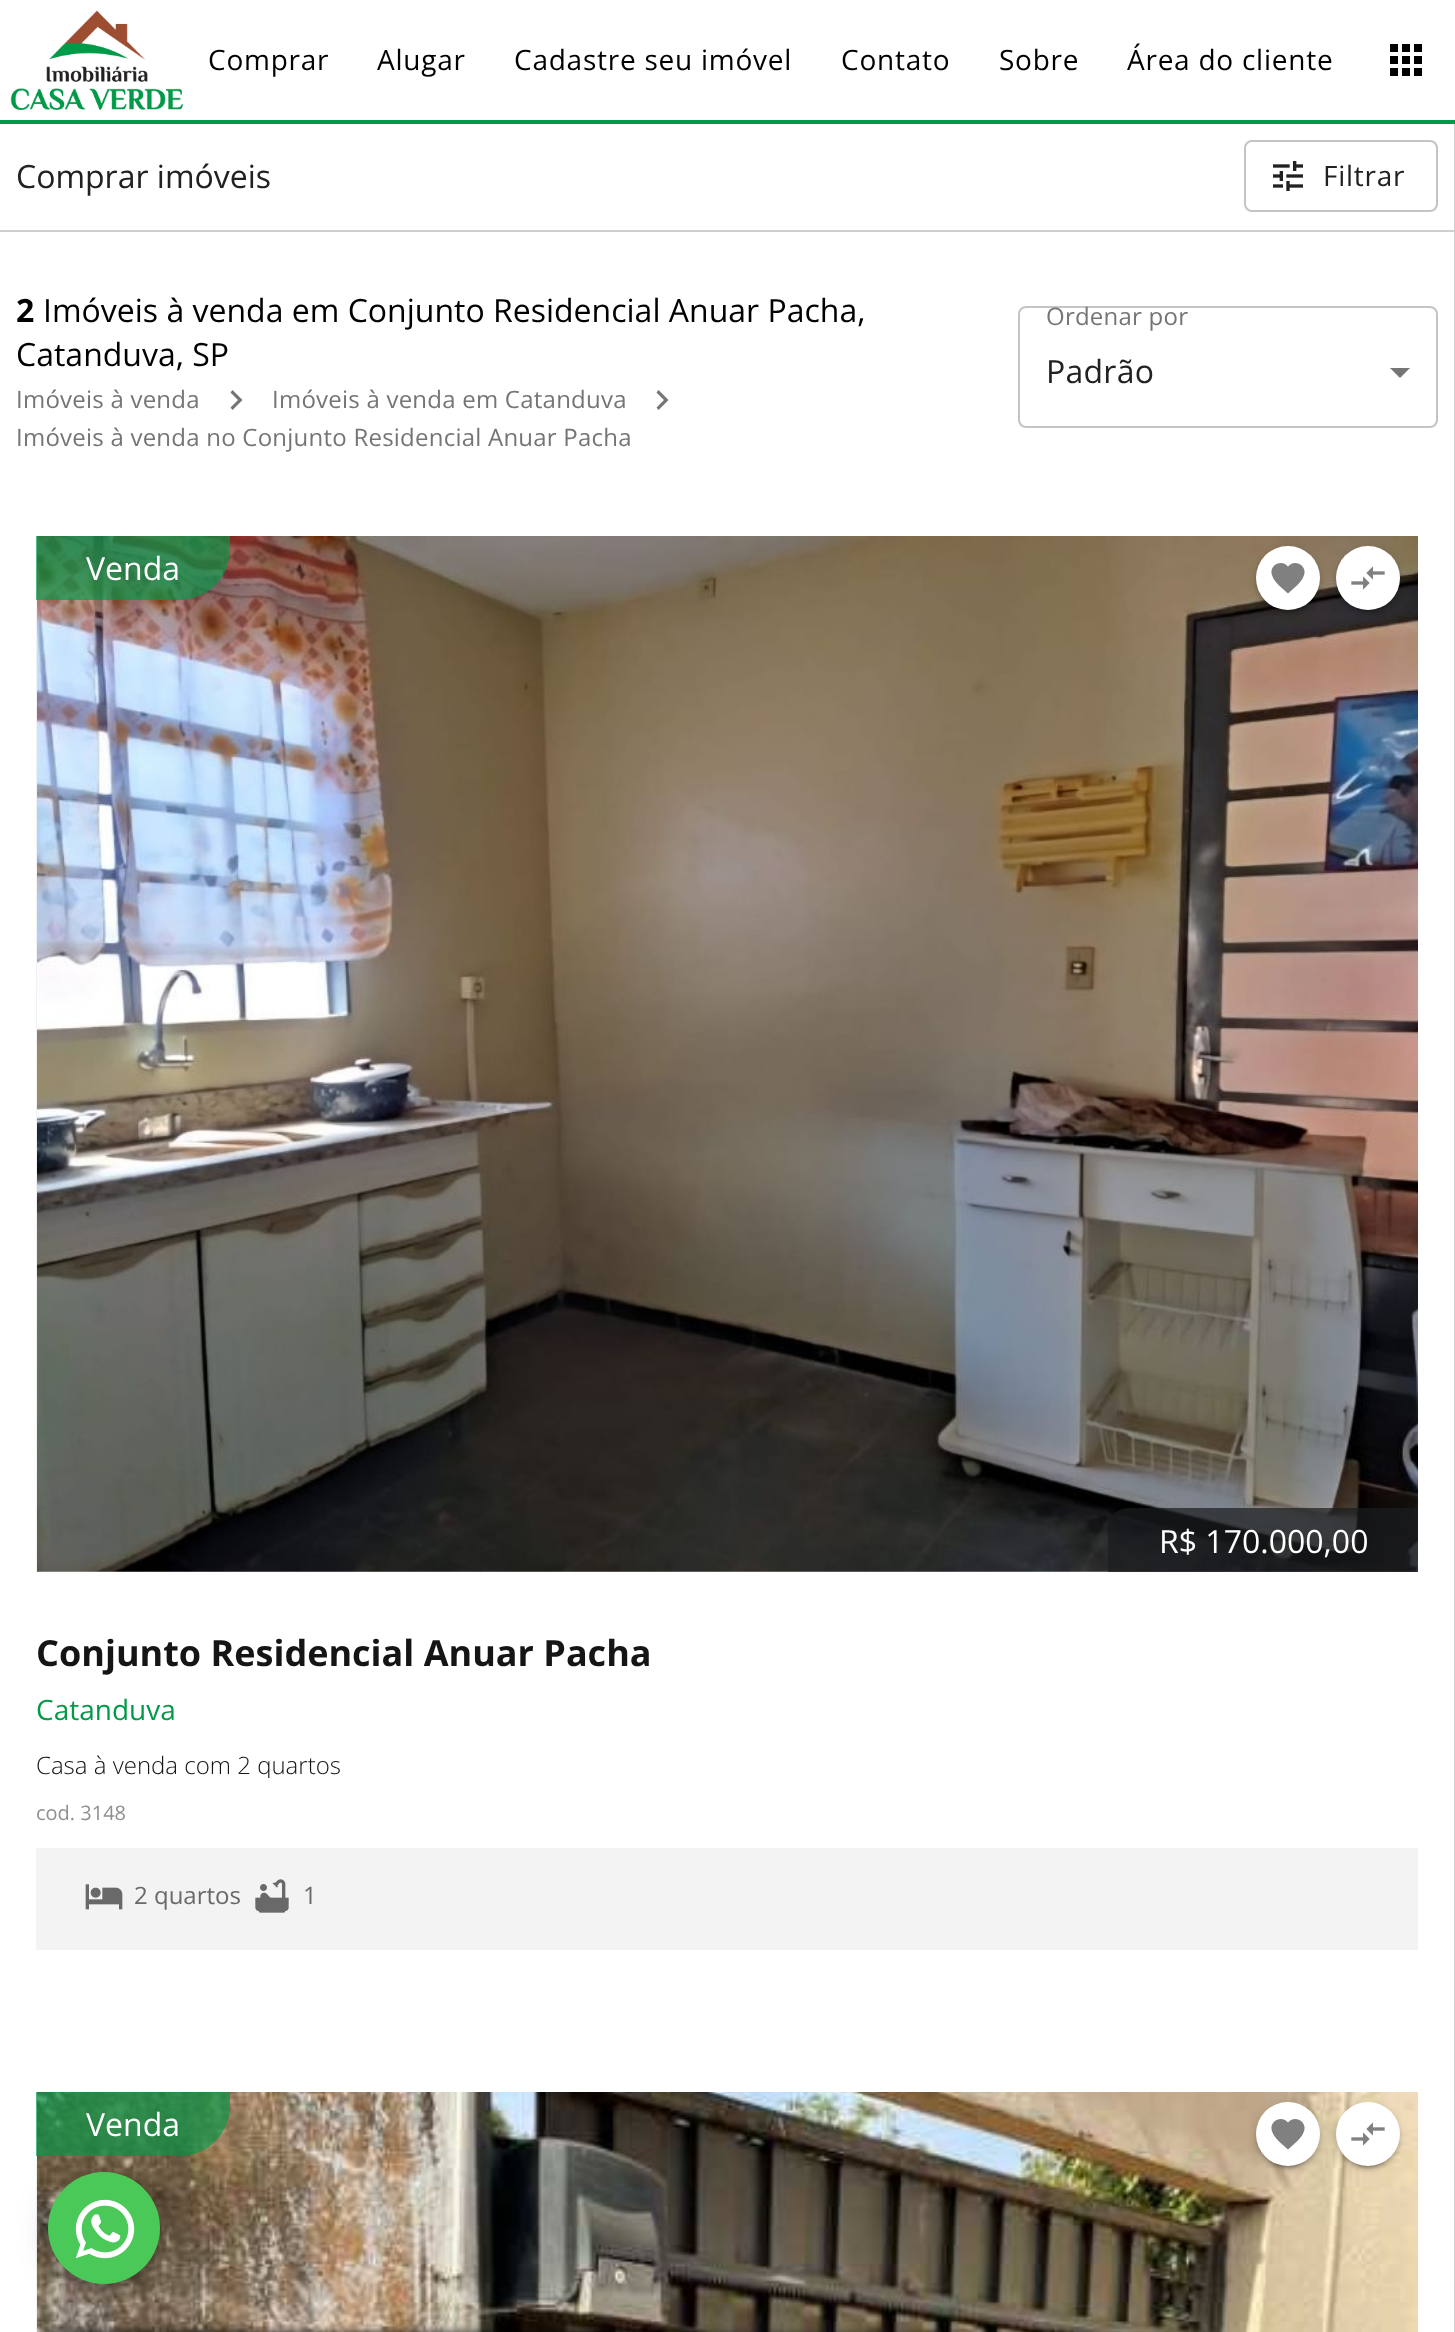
<?xml version="1.0" encoding="UTF-8"?>
<svg xmlns="http://www.w3.org/2000/svg" width="1455" height="2332">
    <defs>
        <filter id="blur1" x="-50%" y="-200%" width="200%" height="500%"><feGaussianBlur stdDeviation="5"/></filter>
        <filter id="blur2" x="-50%" y="-200%" width="200%" height="500%"><feGaussianBlur stdDeviation="2"/></filter>
        <filter id="blur3" x="-50%" y="-200%" width="200%" height="500%"><feGaussianBlur stdDeviation="1"/></filter>
        <clipPath id="clip1"><rect x="36" y="1754" width="1382" height="24"/></clipPath>
        <filter id="blur4" x="-50%" y="-200%" width="200%" height="500%"><feGaussianBlur stdDeviation="18"/></filter>
        <filter id="blur5" x="-50%" y="-200%" width="200%" height="500%"><feGaussianBlur stdDeviation="10"/></filter>
        <filter id="blur6" x="-50%" y="-200%" width="200%" height="500%"><feGaussianBlur stdDeviation="4"/></filter>
    </defs>
    <rect width="100%" height="100%" fill="#FFFFFF"/>
    <rect x="1454" y="122" width="1" height="2210" fill="#CECECE"/>
    <rect x="0" y="120" width="1455" height="4" fill="#019A48"/>
    <image x="10" y="10" width="174" height="100" href="img_01.png"/>
    <text x="208" y="70" font-family="Open Sans" font-size="28" letter-spacing="0.75" fill="#000000">Comprar</text>
    <text x="377" y="70" font-family="Open Sans" font-size="28" letter-spacing="0.75" fill="#000000">Alugar</text>
    <text x="514" y="70" font-family="Open Sans" font-size="28" letter-spacing="0.75" fill="#000000">Cadastre seu imóvel</text>
    <text x="841" y="70" font-family="Open Sans" font-size="28" letter-spacing="0.75" fill="#000000">Contato</text>
    <text x="999" y="70" font-family="Open Sans" font-size="28" letter-spacing="0.75" fill="#000000">Sobre</text>
    <text x="1127" y="70" font-family="Open Sans" font-size="28" letter-spacing="0.75" fill="#000000">Área do cliente</text>
    <image x="1390" y="44" width="32" height="32" href="img_02.png"/>
    <rect x="0" y="230" width="1454" height="2" fill="#CECECE"/>
    <text x="16" y="188" font-family="Open Sans" font-size="32" fill="#212121">Comprar imóveis</text>
    <rect x="1245" y="141" width="192" height="70" rx="7" fill="none" stroke="#C4C4C4" stroke-width="2"/>
    <image x="1273" y="161" width="30" height="30" href="img_03.png"/>
    <text x="1323" y="186" font-family="Open Sans" font-size="28" letter-spacing="0.75" fill="#212121">Filtrar</text>
    <text x="16" y="322" font-family="Open Sans" font-size="32" font-weight="700" fill="#000000">2</text>
    <text x="43" y="322" font-family="Open Sans" font-size="32" fill="#000000">Imóveis à venda em Conjunto Residencial Anuar Pacha,</text>
    <text x="16" y="366" font-family="Open Sans" font-size="32" fill="#000000">Catanduva, SP</text>
    <text x="16" y="408" font-family="Open Sans" font-size="24" letter-spacing="0.23" fill="#757575">Imóveis à venda</text>
    <path d="M 232.5 390 L 230.5 392.5 L 238 400 L 230.5 407.5 L 232.5 410 L 242.5 400 Z" fill="#757575"/>
    <text x="272" y="408" font-family="Open Sans" font-size="24" letter-spacing="0.23" fill="#757575">Imóveis à venda em Catanduva</text>
    <path d="M 658.5 390 L 656.5 392.5 L 664 400 L 656.5 407.5 L 658.5 410 L 668.5 400 Z" fill="#757575"/>
    <text x="16" y="446" font-family="Open Sans" font-size="24" letter-spacing="0.23" fill="#757575">Imóveis à venda no Conjunto Residencial Anuar Pacha</text>
    <path d="M 1390 368 L 1400 378 L 1410 368 Z" fill="#757575"/>
    <rect x="1019" y="307" width="418" height="120" rx="7" fill="none" stroke="#C4C4C4" stroke-width="2"/>
    <text x="1046" y="325" font-family="Open Sans" font-size="24" letter-spacing="0.23" fill="#757575">Ordenar por</text>
    <text x="1046" y="383" font-family="Open Sans" font-size="32" letter-spacing="0.25" fill="#212121">Padrão</text>
    <rect x="36" y="536" width="1382" height="1036" fill="#F1F1F2"/>
    <image x="37" y="536" width="1381" height="1036" href="img_05.png"/>
    <rect x="1256" y="548" width="64" height="64" rx="32" fill="#000000" fill-opacity="0.12" filter="url(#blur1)"/>
    <rect x="1256" y="550" width="64" height="64" rx="32" fill="#000000" fill-opacity="0.14" filter="url(#blur2)"/>
    <rect x="1260" y="556" width="56" height="56" rx="28" fill="#000000" fill-opacity="0.2" filter="url(#blur3)"/>
    <circle cx="1288" cy="578" r="32" fill="#FFFFFF"/>
    <path d="M 1288 593.5 C 1283 589 1275 583 1272.5 576.5 C 1267.5 566 1281 558 1288 566.5 C 1295 558 1308.5 566 1303.5 576.5 C 1301 583 1293 589 1288 593.5 Z" fill="#808080"/>
    <rect x="1336" y="548" width="64" height="64" rx="32" fill="#000000" fill-opacity="0.12" filter="url(#blur1)"/>
    <rect x="1336" y="550" width="64" height="64" rx="32" fill="#000000" fill-opacity="0.14" filter="url(#blur2)"/>
    <rect x="1340" y="556" width="56" height="56" rx="28" fill="#000000" fill-opacity="0.2" filter="url(#blur3)"/>
    <circle cx="1368" cy="578" r="32" fill="#FFFFFF"/>
    <image x="1351" y="566" width="34" height="24" href="img_04.png"/>
    <path d="M 36 536 H 230 V 550 C 230 577.5 207.5 600 180 600 H 36 Z" fill="#019A48" fill-opacity="0.65"/>
    <text x="86" y="580" font-family="Open Sans" font-size="32" fill="#FFFFFF">Venda</text>
    <path d="M 1128 1508 H 1418 V 1572 H 1108 V 1528 C 1108 1517 1117 1508 1128 1508 Z" fill="#1A1D1F" fill-opacity="0.7"/>
    <text x="1159" y="1553" font-family="Open Sans" font-size="32" fill="#FFFFFF">R$ 170.000,00</text>
    <text x="36" y="1666" font-family="Open Sans" font-size="36" font-weight="700" fill="#151515">Conjunto Residencial Anuar Pacha</text>
    <text x="36" y="1720" font-family="Open Sans" font-size="28" fill="#019A48">Catanduva</text>
    <g clip-path="url(#clip1)">
        <text x="36" y="1774" font-family="Open Sans" font-size="24" font-weight="300" fill="#151515">Casa à venda com 2 quartos</text>
    </g>
    <text x="36" y="1820" font-family="Open Sans" font-size="20" fill="#909090">cod. 3148</text>
    <rect x="36" y="1848" width="1382" height="102" fill="#F3F3F3"/>
    <image x="85" y="1884" width="38" height="26" href="img_06.png"/>
    <text x="134" y="1904" font-family="Open Sans" font-size="24" fill="#696969">2 quartos</text>
    <image x="255" y="1879" width="34" height="34" href="img_07.png"/>
    <text x="303" y="1904" font-family="Open Sans" font-size="24" fill="#696969">1</text>
    <image x="37" y="2092" width="1381" height="240" href="img_08.png"/>
    <rect x="1256" y="2104" width="64" height="64" rx="32" fill="#000000" fill-opacity="0.12" filter="url(#blur1)"/>
    <rect x="1256" y="2106" width="64" height="64" rx="32" fill="#000000" fill-opacity="0.14" filter="url(#blur2)"/>
    <rect x="1260" y="2112" width="56" height="56" rx="28" fill="#000000" fill-opacity="0.2" filter="url(#blur3)"/>
    <circle cx="1288" cy="2134" r="32" fill="#FFFFFF"/>
    <path d="M 1288 2149.5 C 1283 2145 1275 2139 1272.5 2132.5 C 1267.5 2122 1281 2114 1288 2122.5 C 1295 2114 1308.5 2122 1303.5 2132.5 C 1301 2139 1293 2145 1288 2149.5 Z" fill="#808080"/>
    <rect x="1336" y="2104" width="64" height="64" rx="32" fill="#000000" fill-opacity="0.12" filter="url(#blur1)"/>
    <rect x="1336" y="2106" width="64" height="64" rx="32" fill="#000000" fill-opacity="0.14" filter="url(#blur2)"/>
    <rect x="1340" y="2112" width="56" height="56" rx="28" fill="#000000" fill-opacity="0.2" filter="url(#blur3)"/>
    <circle cx="1368" cy="2134" r="32" fill="#FFFFFF"/>
    <image x="1351" y="2122" width="34" height="24" href="img_04.png"/>
    <rect x="36" y="2092" width="1" height="240" fill="#F1F1F2"/>
    <path d="M 36 2092 H 230 V 2106 C 230 2133.5 207.5 2156 180 2156 H 36 Z" fill="#019A48" fill-opacity="0.65"/>
    <text x="86" y="2136" font-family="Open Sans" font-size="32" fill="#FFFFFF">Venda</text>
    <rect x="48" y="2174" width="112" height="112" rx="56" fill="#000000" fill-opacity="0.12" filter="url(#blur4)"/>
    <rect x="48" y="2184" width="112" height="112" rx="56" fill="#000000" fill-opacity="0.14" filter="url(#blur5)"/>
    <rect x="50" y="2180" width="108" height="108" rx="54" fill="#000000" fill-opacity="0.2" filter="url(#blur1)"/>
    <circle cx="104" cy="2228" r="56" fill="#4AC959"/>
    <image x="75" y="2199" width="60" height="60" href="img_09.png"/>
    <rect x="46" y="2332" width="556" height="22" rx="10" fill="#000000" fill-opacity="0.4" filter="url(#blur6)"/>
    <rect x="46" y="2332" width="900" height="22" rx="10" fill="#000000" fill-opacity="0.4" filter="url(#blur6)"/>
</svg>
